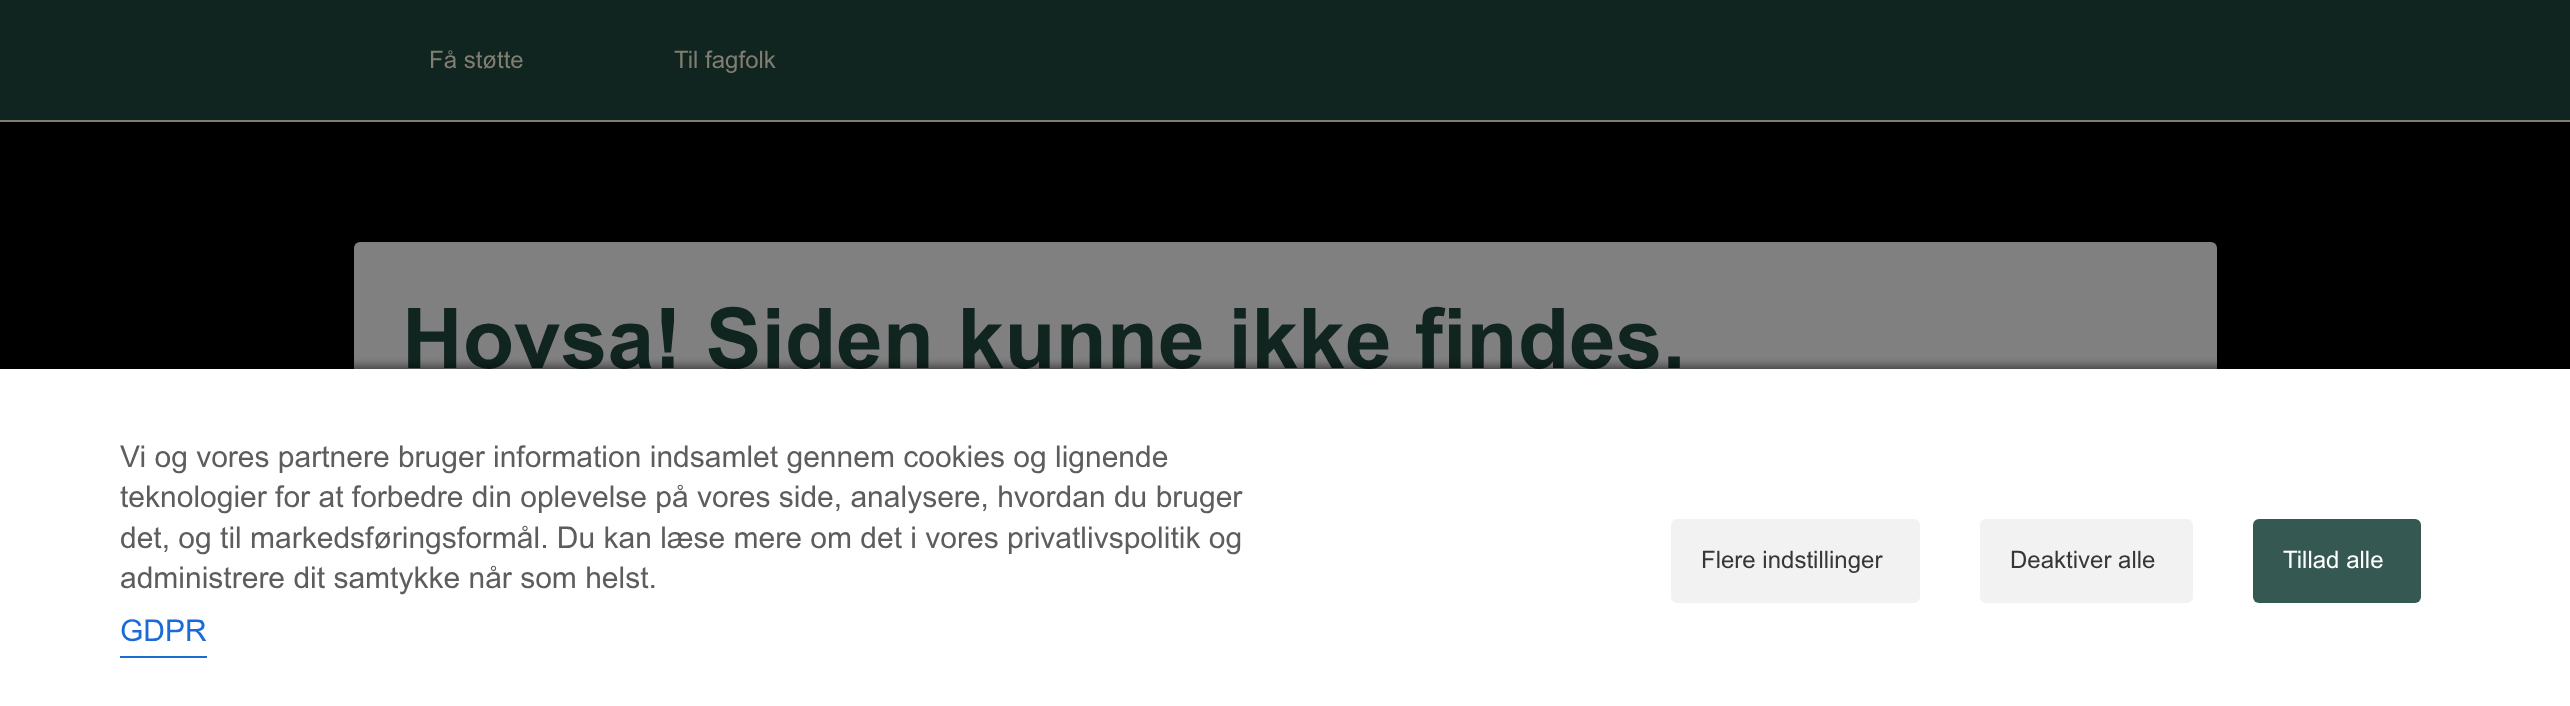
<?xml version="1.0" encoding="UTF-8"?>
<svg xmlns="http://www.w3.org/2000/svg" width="2570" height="706">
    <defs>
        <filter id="blur1" x="-50%" y="-200%" width="200%" height="500%"><feGaussianBlur stdDeviation="4"/></filter>
    </defs>
    <rect width="100%" height="100%" fill="#000000"/>
    <rect x="0" y="0" width="2570" height="120" fill="#102420"/>
    <rect x="0" y="120" width="2570" height="2" fill="#807D72"/>
    <text x="429" y="68" font-family="Arial" font-size="24" fill="#807D72">Få støtte</text>
    <text x="674" y="68" font-family="Arial" font-size="24" fill="#807D72">Til fagfolk</text>
    <rect x="354" y="242" width="1863" height="385" rx="6" fill="#808080"/>
    <text x="402" y="368" font-family="Arial" font-size="84" font-weight="700" fill="#102420">Hovsa! Siden kunne ikke findes.</text>
    <rect x="0" y="366" width="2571" height="338" fill="#000000" fill-opacity="0.5" filter="url(#blur1)"/>
    <rect x="0" y="369" width="2570" height="337" fill="#FFFFFF"/>
    <text font-family="Arial" font-size="30" fill="#5D5D5D">
        <tspan x="120" y="467">Vi og vores partnere bruger information indsamlet gennem cookies og lignende</tspan>
        <tspan x="120" y="507">teknologier for at forbedre din oplevelse på vores side, analysere, hvordan du bruger</tspan>
        <tspan x="120" y="548">det, og til markedsføringsformål. Du kan læse mere om det i vores privatlivspolitik og</tspan>
        <tspan x="120" y="588">administrere dit samtykke når som helst.</tspan>
    </text>
    <text x="120" y="641" font-family="Arial" font-size="30" fill="#1A6BD7">GDPR</text>
    <rect x="120" y="656" width="87" height="2" fill="#1A6BD7"/>
    <rect x="1671" y="519" width="249" height="84" rx="6" fill="#F2F2F2"/>
    <text x="1701" y="568" font-family="Arial" font-size="24" fill="#373737">Flere indstillinger</text>
    <rect x="1980" y="519" width="213" height="84" rx="6" fill="#F2F2F2"/>
    <text x="2010" y="568" font-family="Arial" font-size="24" fill="#373737">Deaktiver alle</text>
    <rect x="2253" y="519" width="168" height="84" rx="6" fill="#355952"/>
    <text x="2283" y="568" font-family="Arial" font-size="24" fill="#FFFFFF">Tillad alle</text>
</svg>
